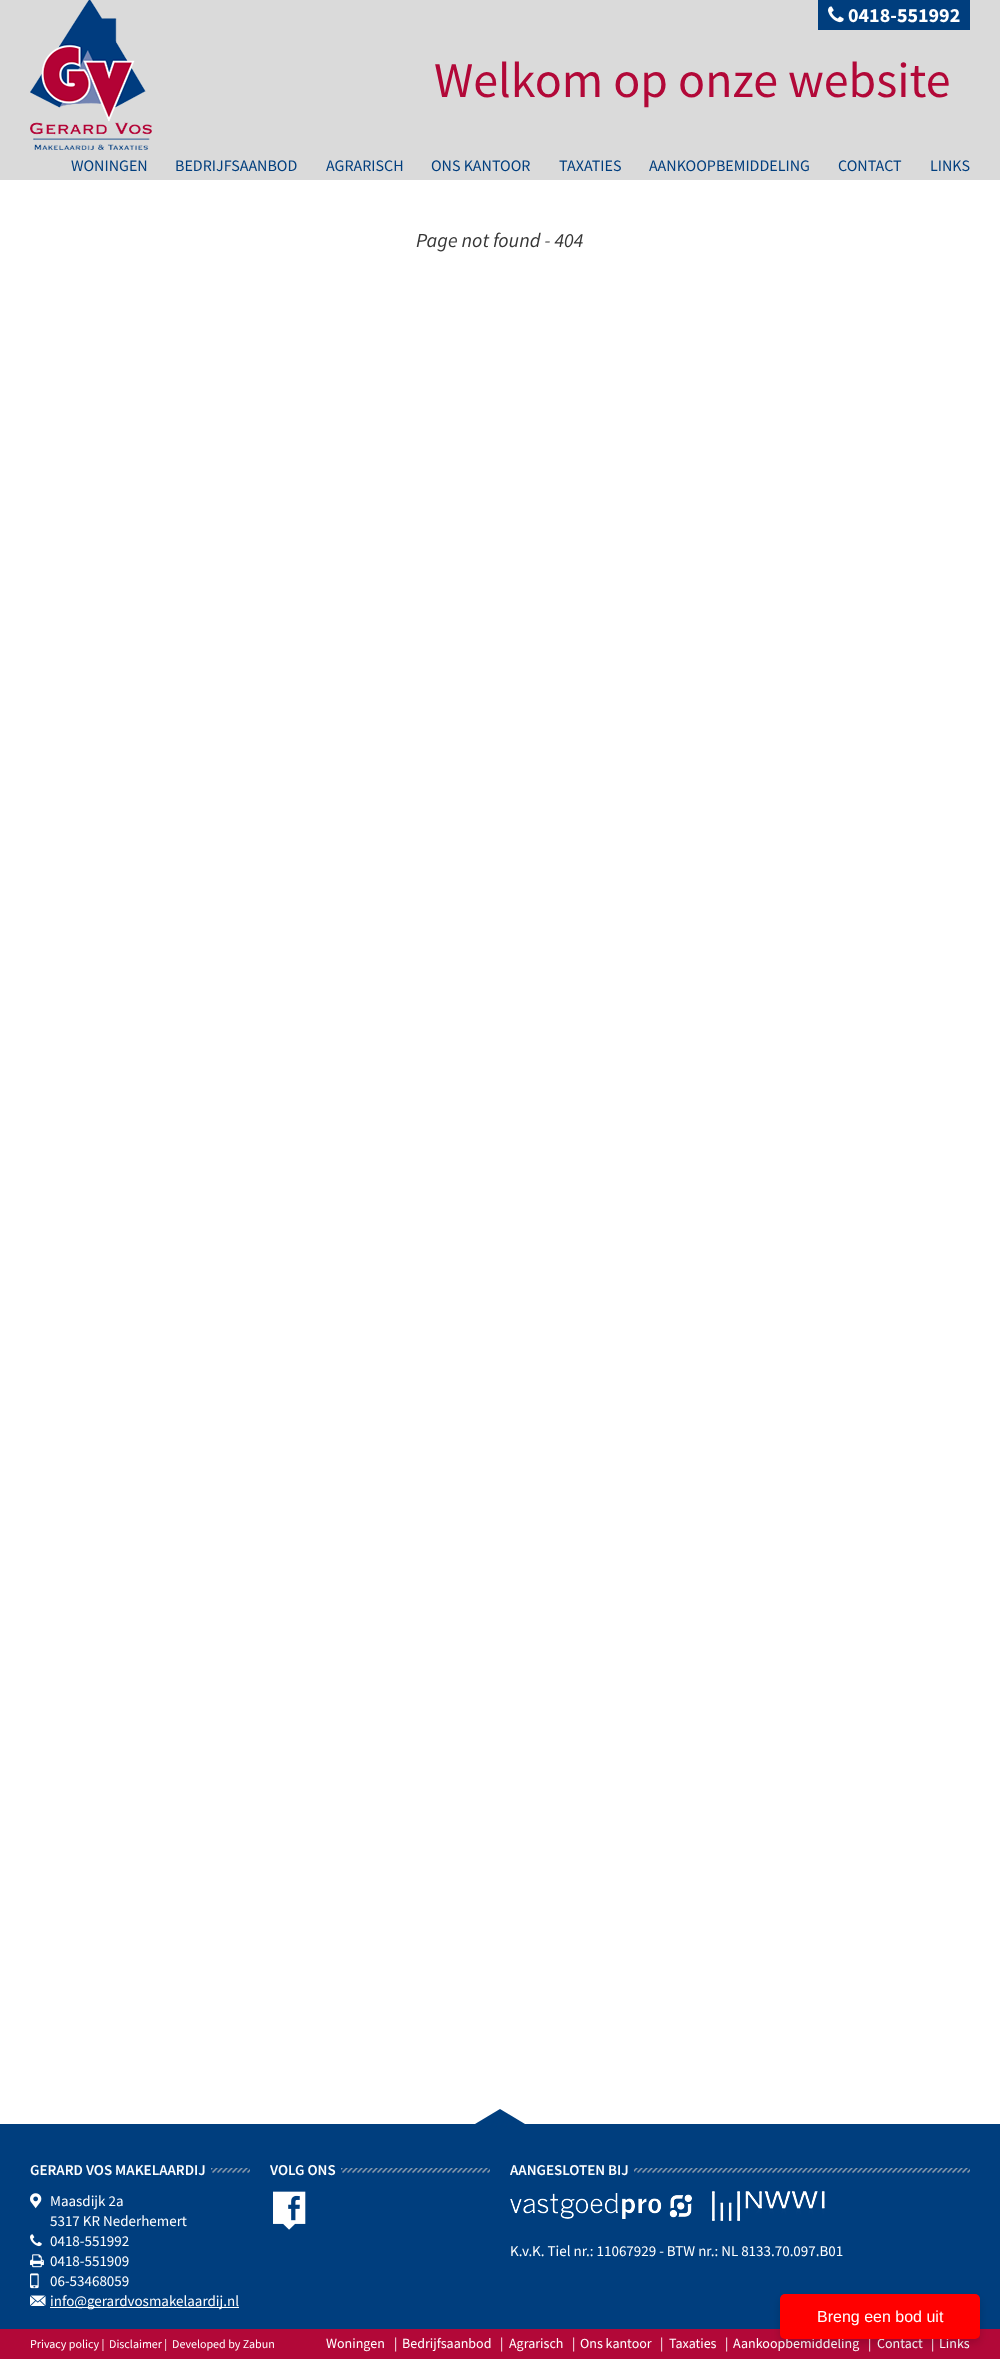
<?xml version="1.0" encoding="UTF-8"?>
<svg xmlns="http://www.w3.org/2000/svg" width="1000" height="2359">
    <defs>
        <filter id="blur1" x="-50%" y="-200%" width="200%" height="500%"><feGaussianBlur stdDeviation="4"/></filter>
    </defs>
    <rect width="100%" height="100%" fill="#FFFFFF"/>
    <rect x="0" y="0" width="1000" height="180" fill="#DADADA"/>
    <rect x="818" y="0" width="152" height="30" fill="#003E7E"/>
    <image x="828" y="6" width="16" height="17" href="img_01.png"/>
    <text x="848" y="22" font-family="Source Sans Pro" font-size="20" font-weight="700" fill="#FFFFFF">0418-551992</text>
    <image x="30" y="0" width="122" height="150" href="img_02.png"/>
    <text x="434" y="97" font-family="Source Sans Pro" font-size="50" fill="#B20838">Welkom op onze website</text>
    <text x="71" y="171" font-family="Source Sans Pro" font-size="16" fill="#003E7E">WONINGEN</text>
    <text x="175" y="171" font-family="Source Sans Pro" font-size="16" fill="#003E7E">BEDRIJFSAANBOD</text>
    <text x="326" y="171" font-family="Source Sans Pro" font-size="16" fill="#003E7E">AGRARISCH</text>
    <text x="431" y="171" font-family="Source Sans Pro" font-size="16" fill="#003E7E">ONS KANTOOR</text>
    <text x="559" y="171" font-family="Source Sans Pro" font-size="16" fill="#003E7E">TAXATIES</text>
    <text x="649" y="171" font-family="Source Sans Pro" font-size="16" fill="#003E7E">AANKOOPBEMIDDELING</text>
    <text x="838" y="171" font-family="Source Sans Pro" font-size="16" fill="#003E7E">CONTACT</text>
    <text x="930" y="171" font-family="Source Sans Pro" font-size="16" fill="#003E7E">LINKS</text>
    <text x="416" y="247" font-family="Source Sans Pro" font-size="20" font-style="italic" fill="#363636">Page not found - 404</text>
    <rect x="0" y="2124" width="1000" height="205" fill="#003E7E"/>
    <path d="M 525 2124 H 475 L 500 2109 Z" fill="#003E7E"/>
    <image x="211" y="2168" width="39" height="5" href="img_03.png"/>
    <text x="30" y="2175" font-family="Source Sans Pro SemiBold" font-size="15" font-weight="600" fill="#FFFFFF">GERARD VOS MAKELAARDIJ</text>
    <image x="30" y="2193" width="12" height="16" href="img_04.png"/>
    <text font-family="Source Sans Pro" font-size="15" fill="#FFFFFF">
        <tspan x="50" y="2206">Maasdijk 2a</tspan>
        <tspan x="50" y="2226">5317 KR Nederhemert</tspan>
    </text>
    <image x="30" y="2234" width="12" height="13" href="img_05.png"/>
    <text x="50" y="2246" font-family="Source Sans Pro" font-size="15" fill="#FFFFFF">0418-551992</text>
    <image x="30" y="2254" width="14" height="14" href="img_06.png"/>
    <text x="50" y="2266" font-family="Source Sans Pro" font-size="15" fill="#FFFFFF">0418-551909</text>
    <image x="30" y="2273" width="9" height="16" href="img_07.png"/>
    <text x="50" y="2286" font-family="Source Sans Pro" font-size="15" fill="#FFFFFF">06-53468059</text>
    <image x="30" y="2295" width="16" height="11" href="img_08.png"/>
    <rect x="50" y="2307" width="189" height="1" fill="#FFFFFF"/>
    <text x="50" y="2306" font-family="Source Sans Pro" font-size="15" fill="#FFFFFF">info@gerardvosmakelaardij.nl</text>
    <image x="341" y="2168" width="149" height="5" href="img_09.png"/>
    <text x="270" y="2175" font-family="Source Sans Pro SemiBold" font-size="15" font-weight="600" fill="#FFFFFF">VOLG ONS</text>
    <image x="273" y="2191" width="33" height="39" href="img_10.png"/>
    <image x="634" y="2168" width="336" height="5" href="img_11.png"/>
    <text x="510" y="2175" font-family="Source Sans Pro SemiBold" font-size="15" font-weight="600" fill="#FFFFFF">AANGESLOTEN BIJ</text>
    <image x="510" y="2193" width="182" height="26" href="img_12.png"/>
    <image x="712" y="2191" width="113" height="30" href="img_13.png"/>
    <text x="510" y="2256" font-family="Source Sans Pro" font-size="15" fill="#FFFFFF">K.v.K. Tiel nr.: 11067929 - BTW nr.: NL 8133.70.097.B01</text>
    <rect x="0" y="2329" width="1000" height="30" fill="#B20838"/>
    <text x="30" y="2348" font-family="Source Sans Pro" font-size="12" fill="#FFFFFF">Privacy policy |</text>
    <text x="109" y="2348" font-family="Source Sans Pro" font-size="12" fill="#FFFFFF">Disclaimer |</text>
    <text x="172" y="2348" font-family="Source Sans Pro" font-size="12" fill="#FFFFFF">Developed by Zabun</text>
    <text x="326" y="2348" font-family="Source Sans Pro" font-size="14" fill="#FFFFFF">Woningen</text>
    <text x="394" y="2348" font-family="Source Sans Pro" font-size="14" fill="#FFFFFF">|</text>
    <text x="402" y="2348" font-family="Source Sans Pro" font-size="14" fill="#FFFFFF">Bedrijfsaanbod</text>
    <text x="500" y="2348" font-family="Source Sans Pro" font-size="14" fill="#FFFFFF">|</text>
    <text x="509" y="2348" font-family="Source Sans Pro" font-size="14" fill="#FFFFFF">Agrarisch</text>
    <text x="572" y="2348" font-family="Source Sans Pro" font-size="14" fill="#FFFFFF">|</text>
    <text x="580" y="2348" font-family="Source Sans Pro" font-size="14" fill="#FFFFFF">Ons kantoor</text>
    <text x="660" y="2348" font-family="Source Sans Pro" font-size="14" fill="#FFFFFF">|</text>
    <text x="669" y="2348" font-family="Source Sans Pro" font-size="14" fill="#FFFFFF">Taxaties</text>
    <text x="725" y="2348" font-family="Source Sans Pro" font-size="14" fill="#FFFFFF">|</text>
    <text x="733" y="2348" font-family="Source Sans Pro" font-size="14" fill="#FFFFFF">Aankoopbemiddeling</text>
    <text x="868" y="2348" font-family="Source Sans Pro" font-size="14" fill="#FFFFFF">|</text>
    <text x="877" y="2348" font-family="Source Sans Pro" font-size="14" fill="#FFFFFF">Contact</text>
    <text x="931" y="2348" font-family="Source Sans Pro" font-size="14" fill="#FFFFFF">|</text>
    <text x="939" y="2348" font-family="Source Sans Pro" font-size="14" fill="#FFFFFF">Links</text>
    <rect x="780" y="2298" width="200" height="45" rx="5" fill="#000000" fill-opacity="0.15" filter="url(#blur1)"/>
    <rect x="780" y="2294" width="200" height="45" rx="5" fill="#FF0000"/>
    <text x="817" y="2322" font-family="Liberation Sans" font-size="16" fill="#FFFFFF">Breng een bod uit</text>
</svg>
